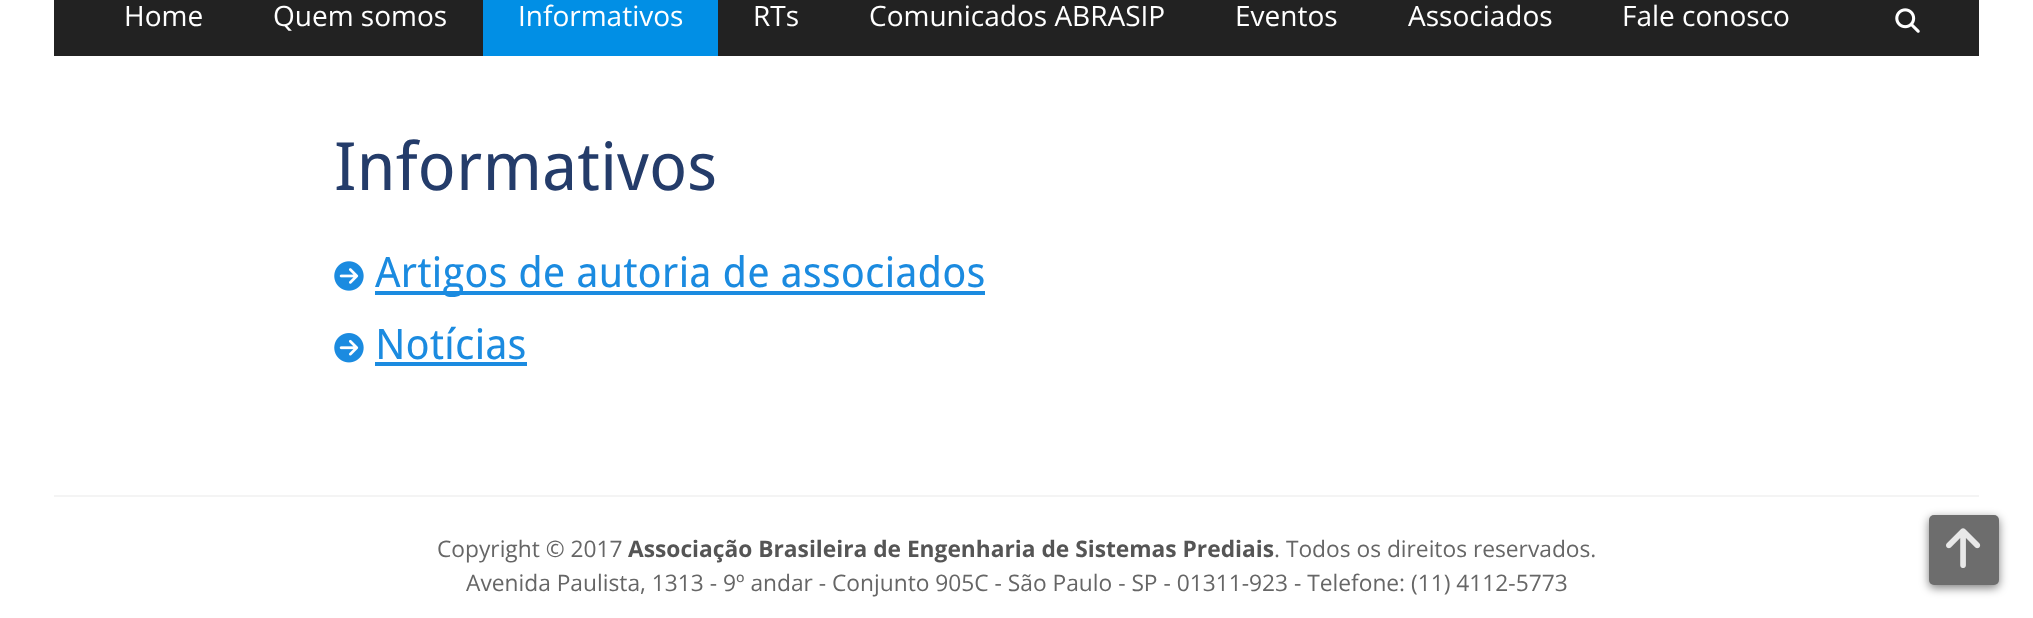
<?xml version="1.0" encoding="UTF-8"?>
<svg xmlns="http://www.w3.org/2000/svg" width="2033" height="618">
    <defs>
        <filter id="blur1" x="-50%" y="-200%" width="200%" height="500%"><feGaussianBlur stdDeviation="5"/></filter>
    </defs>
    <rect width="100%" height="100%" fill="#FFFFFF"/>
    <rect x="54" y="0" width="1925" height="56" fill="#222222"/>
    <text x="124" y="26" font-family="Open Sans" font-size="28" fill="#FFFFFF">Home</text>
    <text x="273" y="26" font-family="Open Sans" font-size="28" fill="#FFFFFF">Quem somos</text>
    <rect x="483" y="0" width="235" height="56" fill="#018FE5"/>
    <text x="518" y="26" font-family="Open Sans" font-size="28" fill="#FFFFFF">Informativos</text>
    <text x="753" y="26" font-family="Open Sans" font-size="28" fill="#FFFFFF">RTs</text>
    <text x="869" y="26" font-family="Open Sans" font-size="28" fill="#FFFFFF">Comunicados ABRASIP</text>
    <text x="1235" y="26" font-family="Open Sans" font-size="28" fill="#FFFFFF">Eventos</text>
    <text x="1408" y="26" font-family="Open Sans" font-size="28" fill="#FFFFFF">Associados</text>
    <text x="1622" y="26" font-family="Open Sans" font-size="28" fill="#FFFFFF">Fale conosco</text>
    <image x="1895" y="8" width="25" height="25" href="img_01.png"/>
    <text x="334" y="190" font-family="Droid Sans" font-size="66.5" fill="#243C6A">Informativos</text>
    <image x="334" y="261" width="30" height="30" href="img_02.png"/>
    <rect x="375" y="291" width="610" height="4" fill="#1B8BE0"/>
    <text x="375" y="287" font-family="Droid Sans" font-size="42" fill="#1B8BE0">Artigos de autoria de associados</text>
    <image x="334" y="333" width="30" height="30" href="img_03.png"/>
    <text x="375" y="359" font-family="Droid Sans" font-size="42" fill="#1B8BE0">Notícias</text>
    <rect x="375" y="362" width="152" height="4" fill="#1B8BE0"/>
    <rect x="54" y="495" width="1925" height="2" fill="#F4F4F4"/>
    <text x="437" y="557" font-family="Open Sans" font-size="22.75" fill="#666666">Copyright © 2017</text>
    <text x="628" y="557" font-family="Open Sans" font-size="22.75" font-weight="700" fill="#555555">Associação Brasileira de Engenharia de Sistemas Prediais</text>
    <text x="1274" y="557" font-family="Open Sans" font-size="22.75" fill="#666666">. Todos os direitos reservados.</text>
    <text x="466" y="591" font-family="Open Sans" font-size="22.75" fill="#666666">Avenida Paulista, 1313 - 9º andar - Conjunto 905C - São Paulo - SP - 01311-923 - Telefone: (11) 4112-5773</text>
    <rect x="1929" y="518" width="70" height="70" rx="5" fill="#0C0C0C" fill-opacity="0.5" filter="url(#blur1)"/>
    <rect x="1929" y="515" width="70" height="70" rx="5" fill="#6D6D6D"/>
    <image x="1946" y="528" width="35" height="40" href="img_04.png"/>
</svg>
